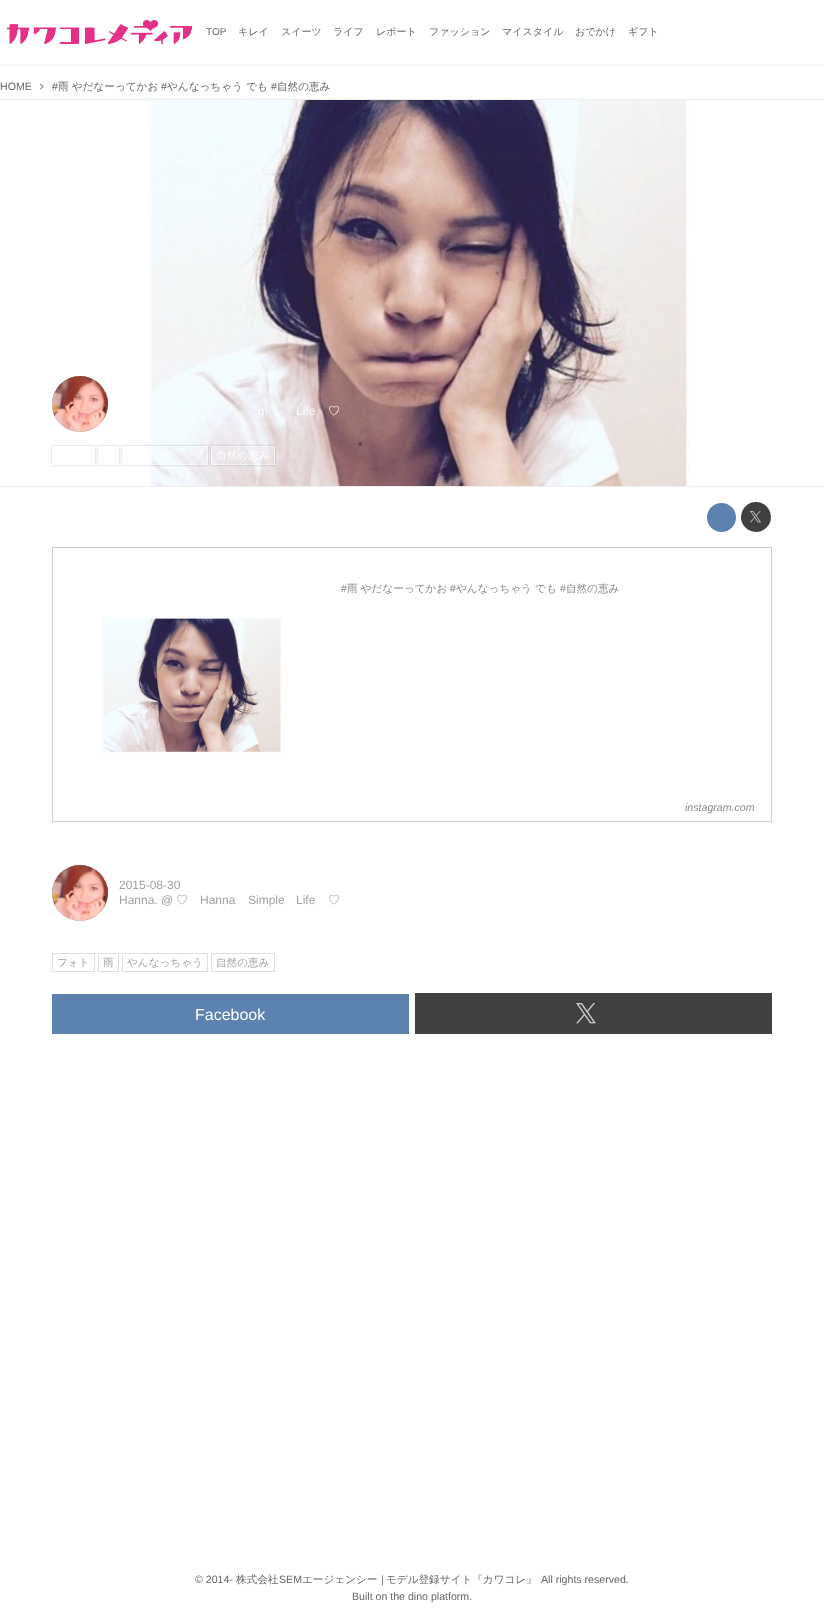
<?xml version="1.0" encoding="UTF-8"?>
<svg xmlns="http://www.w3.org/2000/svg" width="824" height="1616">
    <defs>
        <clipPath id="clip1"><path d="M 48 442 H 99 V 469 H 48 Z M 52 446 H 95 V 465 H 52 Z" clip-rule="evenodd"/></clipPath>
        <filter id="blur1" x="-50%" y="-200%" width="200%" height="500%"><feGaussianBlur stdDeviation="1"/></filter>
        <clipPath id="clip2"><path d="M 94 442 H 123 V 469 H 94 Z M 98 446 H 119 V 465 H 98 Z" clip-rule="evenodd"/></clipPath>
        <clipPath id="clip3"><path d="M 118 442 H 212 V 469 H 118 Z M 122 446 H 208 V 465 H 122 Z" clip-rule="evenodd"/></clipPath>
        <clipPath id="clip4"><path d="M 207 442 H 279 V 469 H 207 Z M 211 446 H 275 V 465 H 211 Z" clip-rule="evenodd"/></clipPath>
    </defs>
    <rect width="100%" height="100%" fill="#FFFFFF"/>
    <image x="7" y="20" width="185" height="24" href="img_01.png"/>
    <text x="206" y="35" font-family="Liberation Sans" font-size="10" fill="#666666">TOP</text>
    <text x="238" y="35" font-family="WenQuanYi Zen Hei" font-size="10" font-weight="500" fill="#666666">キレイ</text>
    <text x="281" y="35" font-family="WenQuanYi Zen Hei" font-size="10" font-weight="500" fill="#666666">スイーツ</text>
    <text x="333" y="35" font-family="WenQuanYi Zen Hei" font-size="10" font-weight="500" fill="#666666">ライフ</text>
    <text x="376" y="35" font-family="WenQuanYi Zen Hei" font-size="10" font-weight="500" fill="#666666">レポート</text>
    <text x="429" y="35" font-family="WenQuanYi Zen Hei" font-size="10" font-weight="500" fill="#666666">ファッション</text>
    <text x="502" y="35" font-family="WenQuanYi Zen Hei" font-size="10" font-weight="500" fill="#666666">マイスタイル</text>
    <text x="575" y="35" font-family="WenQuanYi Zen Hei" font-size="10" font-weight="500" fill="#666666">おでかけ</text>
    <text x="628" y="35" font-family="WenQuanYi Zen Hei" font-size="10" font-weight="500" fill="#666666">ギフト</text>
    <rect x="0" y="64" width="824" height="2" fill="#F8F8F8"/>
    <text x="0" y="90" font-family="Liberation Sans" font-size="10.6" fill="#666666">HOME</text>
    <image x="40" y="83" width="4" height="7" href="img_02.png"/>
    <text x="52" y="90" font-family="Liberation Sans" font-size="10.6" fill="#666666">#</text>
    <text x="58" y="90" font-family="WenQuanYi Zen Hei" font-size="10.6" font-weight="500" fill="#666666">雨 やだなーってかお</text>
    <text x="161" y="90" font-family="Liberation Sans" font-size="10.6" fill="#666666">#</text>
    <text x="167" y="90" font-family="WenQuanYi Zen Hei" font-size="10.6" font-weight="500" fill="#666666">やんなっちゃう でも</text>
    <text x="271" y="90" font-family="Liberation Sans" font-size="10.6" fill="#666666">#</text>
    <text x="277" y="90" font-family="WenQuanYi Zen Hei" font-size="10.6" font-weight="500" fill="#666666">自然の恵み</text>
    <rect x="0" y="99" width="824" height="1" fill="#EEEEEE"/>
    <rect x="0" y="486" width="824" height="1" fill="#EEEEEE"/>
    <image x="149" y="100" width="541" height="386" href="img_03.png"/>
    <circle cx="80" cy="404" r="28" fill="#888888"/>
    <image x="52" y="376" width="56" height="56" href="img_04.png"/>
    <text x="258" y="415" font-family="Liberation Sans" font-size="12" fill="#FFFFFF">m</text>
    <text x="296" y="415" font-family="Liberation Sans" font-size="12" fill="#FFFFFF">Life</text>
    <text x="328" y="415" font-family="WenQuanYi Zen Hei" font-size="12" font-weight="500" fill="#FFFFFF">♡</text>
    <g clip-path="url(#clip1)">
        <rect x="52" y="446" width="43" height="19" fill="#000000" fill-opacity="0.25" filter="url(#blur1)"/>
    </g>
    <g clip-path="url(#clip2)">
        <rect x="98" y="446" width="21" height="19" fill="#000000" fill-opacity="0.25" filter="url(#blur1)"/>
    </g>
    <g clip-path="url(#clip3)">
        <rect x="122" y="446" width="86" height="19" fill="#000000" fill-opacity="0.25" filter="url(#blur1)"/>
    </g>
    <rect x="122.5" y="446.5" width="85" height="18" fill="none" stroke="#FFFFFF" stroke-opacity="0.5"/>
    <g clip-path="url(#clip4)">
        <rect x="211" y="446" width="64" height="19" fill="#000000" fill-opacity="0.25" filter="url(#blur1)"/>
    </g>
    <rect x="211.5" y="446.5" width="63" height="18" fill="none" stroke="#FFFFFF" stroke-opacity="0.5"/>
    <text x="216" y="459" font-family="WenQuanYi Zen Hei" font-size="10.6" font-weight="500" fill="#FFFFFF">自然の恵み</text>
    <circle cx="721.5" cy="517.5" r="14.5" fill="#5C83B0"/>
    <circle cx="756" cy="517" r="15" fill="#404040"/>
    <image x="750" y="511" width="11" height="12" href="img_05.png"/>
    <rect x="52.5" y="547.5" width="719" height="274" fill="none" stroke="#CCCCCC"/>
    <image x="101" y="616" width="184" height="137" href="img_06.png"/>
    <text x="341" y="592" font-family="Liberation Sans" font-size="10.6" fill="#888888">#</text>
    <text x="347" y="592" font-family="WenQuanYi Zen Hei" font-size="10.6" font-weight="500" fill="#888888">雨 やだなーってかお</text>
    <text x="450" y="592" font-family="Liberation Sans" font-size="10.6" fill="#888888">#</text>
    <text x="456" y="592" font-family="WenQuanYi Zen Hei" font-size="10.6" font-weight="500" fill="#888888">やんなっちゃう でも</text>
    <text x="560" y="592" font-family="Liberation Sans" font-size="10.6" fill="#888888">#</text>
    <text x="566" y="592" font-family="WenQuanYi Zen Hei" font-size="10.6" font-weight="500" fill="#888888">自然の恵み</text>
    <text x="685" y="811" font-family="Liberation Sans" font-size="10.6" font-style="italic" fill="#888888">instagram.com</text>
    <circle cx="80" cy="893" r="28" fill="#888888"/>
    <image x="52" y="865" width="56" height="56" href="img_04.png"/>
    <text font-family="Liberation Sans" font-size="12" fill="#A3A3A3">
        <tspan x="119" y="889">2015-08-30</tspan>
        <tspan x="119" y="904">Hanna. @</tspan>
    </text>
    <text x="176" y="904" font-family="WenQuanYi Zen Hei" font-size="12" font-weight="500" fill="#A3A3A3">♡</text>
    <text x="200" y="904" font-family="Liberation Sans" font-size="12" fill="#A3A3A3">Hanna</text>
    <text x="248" y="904" font-family="Liberation Sans" font-size="12" fill="#A3A3A3">Simple</text>
    <text x="296" y="904" font-family="Liberation Sans" font-size="12" fill="#A3A3A3">Life</text>
    <text x="328" y="904" font-family="WenQuanYi Zen Hei" font-size="12" font-weight="500" fill="#A3A3A3">♡</text>
    <rect x="52.5" y="953.5" width="42" height="18" fill="none" stroke="#DFDFDF"/>
    <text x="57" y="966" font-family="WenQuanYi Zen Hei" font-size="10.6" font-weight="500" fill="#A3A3A3">フォト</text>
    <rect x="98.5" y="953.5" width="20" height="18" fill="none" stroke="#DFDFDF"/>
    <text x="103" y="966" font-family="WenQuanYi Zen Hei" font-size="10.6" font-weight="500" fill="#A3A3A3">雨</text>
    <rect x="122.5" y="953.5" width="85" height="18" fill="none" stroke="#DFDFDF"/>
    <text x="127" y="966" font-family="WenQuanYi Zen Hei" font-size="10.6" font-weight="500" fill="#A3A3A3">やんなっちゃう</text>
    <rect x="211.5" y="953.5" width="63" height="18" fill="none" stroke="#DFDFDF"/>
    <text x="216" y="966" font-family="WenQuanYi Zen Hei" font-size="10.6" font-weight="500" fill="#A3A3A3">自然の恵み</text>
    <rect x="52" y="994" width="357" height="40" fill="#5C83B0"/>
    <text x="195" y="1020" font-family="Liberation Sans" font-size="16" fill="#FFFFFF">Facebook</text>
    <rect x="415" y="993" width="357" height="41" fill="#404040"/>
    <image x="576" y="1003" width="20" height="21" href="img_07.png"/>
    <text x="195" y="1583" font-family="Liberation Sans" font-size="10.6" fill="#666666">© 2014-</text>
    <text x="236" y="1583" font-family="WenQuanYi Zen Hei" font-size="10.6" font-weight="500" fill="#666666">株式会社</text>
    <text x="279" y="1583" font-family="Liberation Sans" font-size="10.6" fill="#666666">SEM</text>
    <text x="302" y="1583" font-family="WenQuanYi Zen Hei" font-size="10.6" font-weight="500" fill="#666666">エージェンシー</text>
    <text x="381" y="1583" font-family="Liberation Sans" font-size="10.6" fill="#666666">|</text>
    <text x="386" y="1583" font-family="WenQuanYi Zen Hei" font-size="10.6" font-weight="500" fill="#666666">モデル登録サイト『カワコレ』</text>
    <text x="541" y="1583" font-family="Liberation Sans" font-size="10.6" fill="#666666">All rights reserved.</text>
    <text x="352" y="1600" font-family="Liberation Sans" font-size="10.6" fill="#666666">Built on the dino platform.</text>
</svg>
